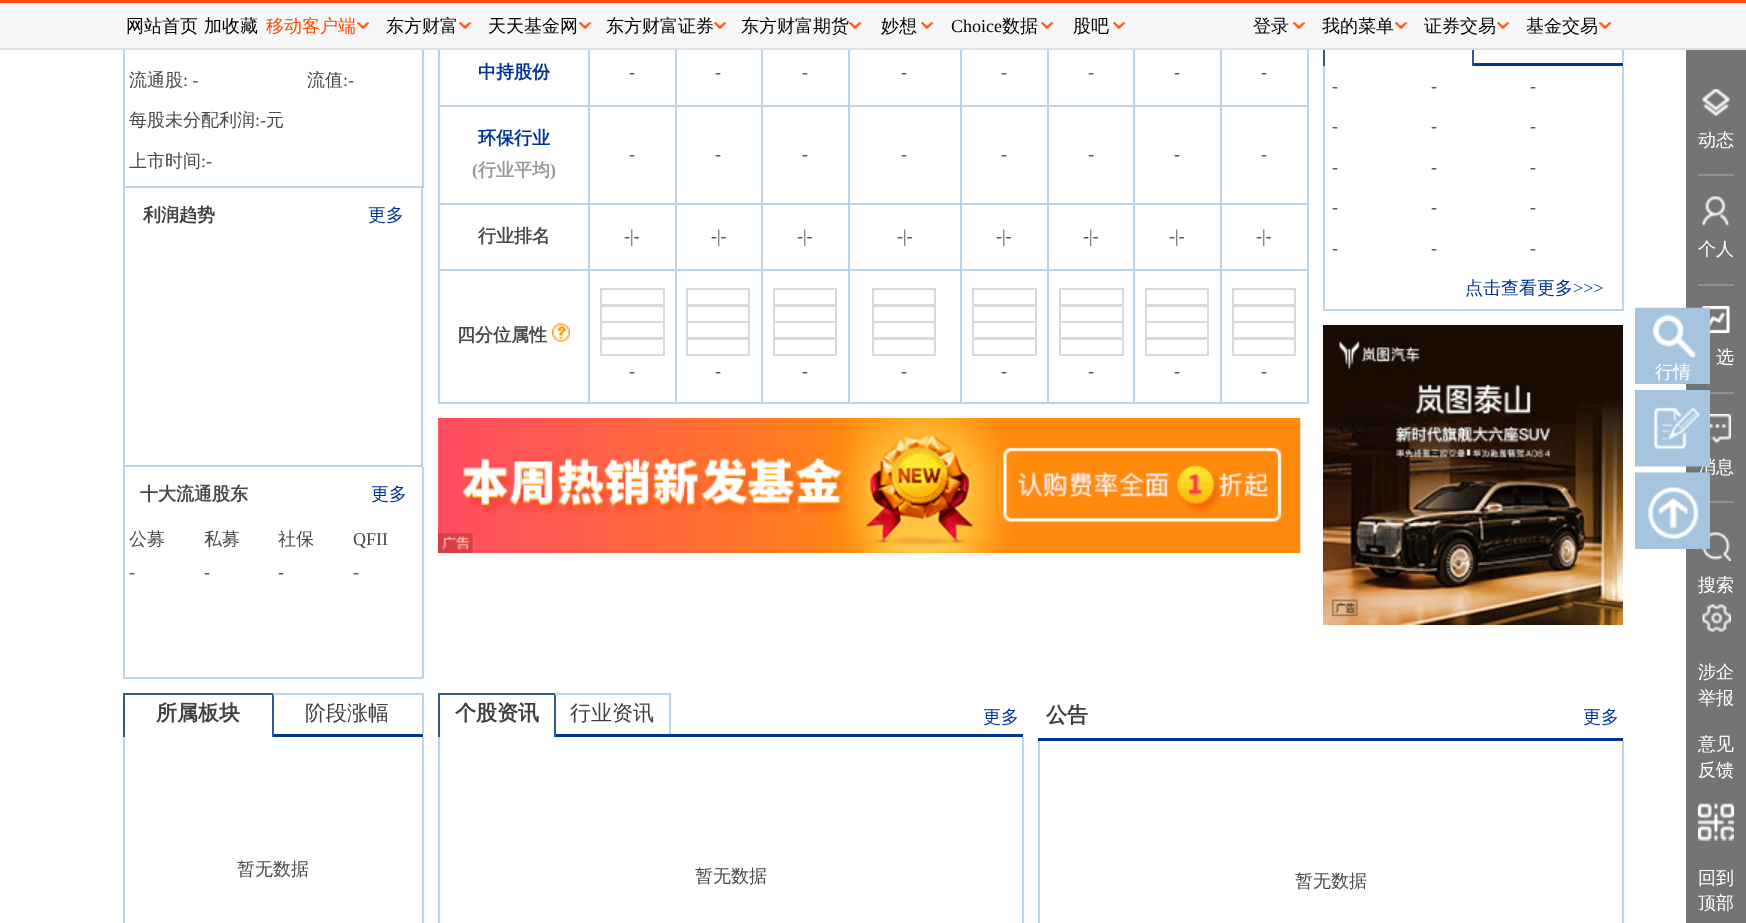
<?xml version="1.0" encoding="UTF-8"?>
<svg xmlns="http://www.w3.org/2000/svg" width="1746" height="923">
    <rect width="100%" height="100%" fill="#FFFFFF"/>
    <rect x="0" y="3" width="1746" height="45" fill="#F7F7F7"/>
    <rect x="0" y="0" width="1746" height="3" fill="#FF4901"/>
    <rect x="0" y="48" width="1746" height="2" fill="#DFDFDF"/>
    <text x="126" y="32" font-family="WenQuanYi Zen Hei" font-size="18" font-weight="500" fill="#000000">网站首页</text>
    <text x="204" y="32" font-family="WenQuanYi Zen Hei" font-size="18" font-weight="500" fill="#000000">加收藏</text>
    <image x="357" y="22" width="13" height="7" href="img_01.png"/>
    <text x="266" y="32" font-family="WenQuanYi Zen Hei" font-size="18" font-weight="500" fill="#FF4900">移动客户端</text>
    <image x="459" y="22" width="13" height="7" href="img_01.png"/>
    <text x="386" y="32" font-family="WenQuanYi Zen Hei" font-size="18" font-weight="500" fill="#000000">东方财富</text>
    <image x="579" y="22" width="13" height="7" href="img_01.png"/>
    <text x="488" y="32" font-family="WenQuanYi Zen Hei" font-size="18" font-weight="500" fill="#000000">天天基金网</text>
    <image x="714" y="22" width="13" height="7" href="img_01.png"/>
    <text x="606" y="32" font-family="WenQuanYi Zen Hei" font-size="18" font-weight="500" fill="#000000">东方财富证券</text>
    <image x="849" y="22" width="13" height="7" href="img_01.png"/>
    <text x="741" y="32" font-family="WenQuanYi Zen Hei" font-size="18" font-weight="500" fill="#000000">东方财富期货</text>
    <image x="921" y="22" width="13" height="7" href="img_01.png"/>
    <text x="881" y="32" font-family="WenQuanYi Zen Hei" font-size="18" font-weight="500" fill="#000000">妙想</text>
    <image x="1041" y="22" width="13" height="7" href="img_01.png"/>
    <text x="951" y="32" font-family="Liberation Serif" font-size="18" fill="#000000">Choice</text>
    <text x="1002" y="32" font-family="WenQuanYi Zen Hei" font-size="18" font-weight="500" fill="#000000">数据</text>
    <image x="1113" y="22" width="13" height="7" href="img_01.png"/>
    <text x="1073" y="32" font-family="WenQuanYi Zen Hei" font-size="18" font-weight="500" fill="#000000">股吧</text>
    <image x="1293" y="22" width="13" height="7" href="img_01.png"/>
    <text x="1253" y="32" font-family="WenQuanYi Zen Hei" font-size="18" font-weight="500" fill="#000000">登录</text>
    <image x="1395" y="22" width="13" height="7" href="img_01.png"/>
    <text x="1322" y="32" font-family="WenQuanYi Zen Hei" font-size="18" font-weight="500" fill="#000000">我的菜单</text>
    <image x="1497" y="22" width="13" height="7" href="img_01.png"/>
    <text x="1424" y="32" font-family="WenQuanYi Zen Hei" font-size="18" font-weight="500" fill="#000000">证券交易</text>
    <image x="1599" y="22" width="13" height="7" href="img_01.png"/>
    <text x="1526" y="32" font-family="WenQuanYi Zen Hei" font-size="18" font-weight="500" fill="#000000">基金交易</text>
    <rect x="422" y="50" width="2" height="138" fill="#BBD4E8"/>
    <rect x="123" y="50" width="2" height="138" fill="#BBD4E8"/>
    <text x="129" y="86" font-family="WenQuanYi Zen Hei" font-size="18" font-weight="500" fill="#494949">流通股</text>
    <text x="183" y="86" font-family="Liberation Serif" font-size="18" fill="#494949">: -</text>
    <text x="307" y="86" font-family="WenQuanYi Zen Hei" font-size="18" font-weight="500" fill="#494949">流值</text>
    <text x="343" y="86" font-family="Liberation Serif" font-size="18" fill="#494949">:-</text>
    <text x="129" y="126" font-family="WenQuanYi Zen Hei" font-size="18" font-weight="500" fill="#494949">每股未分配利润</text>
    <text x="255" y="126" font-family="Liberation Serif" font-size="18" fill="#494949">:-</text>
    <text x="266" y="126" font-family="WenQuanYi Zen Hei" font-size="18" font-weight="500" fill="#494949">元</text>
    <text x="129" y="167" font-family="WenQuanYi Zen Hei" font-size="18" font-weight="500" fill="#494949">上市时间</text>
    <text x="201" y="167" font-family="Liberation Serif" font-size="18" fill="#494949">:-</text>
    <rect x="124" y="187" width="298" height="279" fill="none" stroke="#BBD4E8" stroke-width="2"/>
    <text x="143" y="221" font-family="WenQuanYi Zen Hei" font-size="18" font-weight="700" fill="#3F3F3F">利润趋势</text>
    <text x="368" y="221" font-family="WenQuanYi Zen Hei" font-size="18" font-weight="500" fill="#003497">更多</text>
    <rect x="422" y="467" width="2" height="211" fill="#BBD4E8"/>
    <rect x="123" y="677" width="300" height="2" fill="#BBD4E8"/>
    <rect x="123" y="467" width="2" height="211" fill="#BBD4E8"/>
    <text x="140" y="500" font-family="WenQuanYi Zen Hei" font-size="18" font-weight="700" fill="#494949">十大流通股东</text>
    <text x="371" y="500" font-family="WenQuanYi Zen Hei" font-size="18" font-weight="500" fill="#003497">更多</text>
    <text x="129" y="545" font-family="WenQuanYi Zen Hei" font-size="18" font-weight="500" fill="#494949">公募</text>
    <text x="204" y="545" font-family="WenQuanYi Zen Hei" font-size="18" font-weight="500" fill="#494949">私募</text>
    <text x="278" y="545" font-family="WenQuanYi Zen Hei" font-size="18" font-weight="500" fill="#494949">社保</text>
    <text x="353" y="545" font-family="Liberation Serif" font-size="18" fill="#494949">QFII</text>
    <text x="129" y="578" font-family="Liberation Serif" font-size="18" fill="#494949">-</text>
    <text x="204" y="578" font-family="Liberation Serif" font-size="18" fill="#494949">-</text>
    <text x="278" y="578" font-family="Liberation Serif" font-size="18" fill="#494949">-</text>
    <text x="353" y="578" font-family="Liberation Serif" font-size="18" fill="#494949">-</text>
    <rect x="1307" y="50" width="2" height="354" fill="#BBD4E8"/>
    <rect x="438" y="402" width="870" height="2" fill="#BBD4E8"/>
    <rect x="438" y="50" width="2" height="354" fill="#BBD4E8"/>
    <rect x="1220" y="269" width="2" height="135" fill="#BBD4E8"/>
    <rect x="1220" y="269" width="88" height="2" fill="#BBD4E8"/>
    <rect x="1220" y="203" width="2" height="67" fill="#BBD4E8"/>
    <rect x="1220" y="203" width="88" height="2" fill="#BBD4E8"/>
    <rect x="1220" y="105" width="2" height="99" fill="#BBD4E8"/>
    <rect x="1220" y="105" width="88" height="2" fill="#BBD4E8"/>
    <rect x="1220" y="50" width="2" height="57" fill="#BBD4E8"/>
    <rect x="1133" y="269" width="2" height="135" fill="#BBD4E8"/>
    <rect x="1133" y="269" width="88" height="2" fill="#BBD4E8"/>
    <rect x="1133" y="203" width="2" height="67" fill="#BBD4E8"/>
    <rect x="1133" y="203" width="88" height="2" fill="#BBD4E8"/>
    <rect x="1133" y="105" width="2" height="99" fill="#BBD4E8"/>
    <rect x="1133" y="105" width="88" height="2" fill="#BBD4E8"/>
    <rect x="1133" y="50" width="2" height="57" fill="#BBD4E8"/>
    <rect x="1047" y="269" width="2" height="135" fill="#BBD4E8"/>
    <rect x="1047" y="269" width="87" height="2" fill="#BBD4E8"/>
    <rect x="1047" y="203" width="2" height="67" fill="#BBD4E8"/>
    <rect x="1047" y="203" width="87" height="2" fill="#BBD4E8"/>
    <rect x="1047" y="105" width="2" height="99" fill="#BBD4E8"/>
    <rect x="1047" y="105" width="87" height="2" fill="#BBD4E8"/>
    <rect x="1047" y="50" width="2" height="57" fill="#BBD4E8"/>
    <rect x="960" y="269" width="2" height="135" fill="#BBD4E8"/>
    <rect x="960" y="269" width="89" height="2" fill="#BBD4E8"/>
    <rect x="960" y="203" width="2" height="67" fill="#BBD4E8"/>
    <rect x="960" y="203" width="89" height="2" fill="#BBD4E8"/>
    <rect x="960" y="105" width="2" height="99" fill="#BBD4E8"/>
    <rect x="960" y="105" width="89" height="2" fill="#BBD4E8"/>
    <rect x="960" y="50" width="2" height="57" fill="#BBD4E8"/>
    <rect x="848" y="269" width="2" height="135" fill="#BBD4E8"/>
    <rect x="848" y="269" width="114" height="2" fill="#BBD4E8"/>
    <rect x="848" y="203" width="2" height="67" fill="#BBD4E8"/>
    <rect x="848" y="203" width="114" height="2" fill="#BBD4E8"/>
    <rect x="848" y="105" width="2" height="99" fill="#BBD4E8"/>
    <rect x="848" y="105" width="114" height="2" fill="#BBD4E8"/>
    <rect x="848" y="50" width="2" height="57" fill="#BBD4E8"/>
    <rect x="761" y="269" width="2" height="135" fill="#BBD4E8"/>
    <rect x="761" y="269" width="88" height="2" fill="#BBD4E8"/>
    <rect x="761" y="203" width="2" height="67" fill="#BBD4E8"/>
    <rect x="761" y="203" width="88" height="2" fill="#BBD4E8"/>
    <rect x="761" y="105" width="2" height="99" fill="#BBD4E8"/>
    <rect x="761" y="105" width="88" height="2" fill="#BBD4E8"/>
    <rect x="761" y="50" width="2" height="57" fill="#BBD4E8"/>
    <rect x="675" y="269" width="2" height="135" fill="#BBD4E8"/>
    <rect x="675" y="269" width="87" height="2" fill="#BBD4E8"/>
    <rect x="675" y="203" width="2" height="67" fill="#BBD4E8"/>
    <rect x="675" y="203" width="87" height="2" fill="#BBD4E8"/>
    <rect x="675" y="105" width="2" height="99" fill="#BBD4E8"/>
    <rect x="675" y="105" width="87" height="2" fill="#BBD4E8"/>
    <rect x="675" y="50" width="2" height="57" fill="#BBD4E8"/>
    <rect x="588" y="269" width="2" height="135" fill="#BBD4E8"/>
    <rect x="588" y="269" width="89" height="2" fill="#BBD4E8"/>
    <rect x="588" y="203" width="2" height="67" fill="#BBD4E8"/>
    <rect x="588" y="203" width="89" height="2" fill="#BBD4E8"/>
    <rect x="588" y="105" width="2" height="99" fill="#BBD4E8"/>
    <rect x="588" y="105" width="89" height="2" fill="#BBD4E8"/>
    <rect x="588" y="50" width="2" height="57" fill="#BBD4E8"/>
    <rect x="438" y="105" width="152" height="2" fill="#BBD4E8"/>
    <text x="478" y="78" font-family="WenQuanYi Zen Hei" font-size="18" font-weight="700" fill="#003497">中持股份</text>
    <text x="629" y="78" font-family="Liberation Serif" font-size="18" fill="#494949">-</text>
    <text x="715" y="78" font-family="Liberation Serif" font-size="18" fill="#494949">-</text>
    <text x="802" y="78" font-family="Liberation Serif" font-size="18" fill="#494949">-</text>
    <text x="901" y="78" font-family="Liberation Serif" font-size="18" fill="#494949">-</text>
    <text x="1001" y="78" font-family="Liberation Serif" font-size="18" fill="#494949">-</text>
    <text x="1088" y="78" font-family="Liberation Serif" font-size="18" fill="#494949">-</text>
    <text x="1174" y="78" font-family="Liberation Serif" font-size="18" fill="#494949">-</text>
    <text x="1261" y="78" font-family="Liberation Serif" font-size="18" fill="#494949">-</text>
    <rect x="438" y="203" width="152" height="2" fill="#BBD4E8"/>
    <text x="478" y="144" font-family="WenQuanYi Zen Hei" font-size="18" font-weight="700" fill="#003497">环保行业</text>
    <text x="472" y="176" font-family="Liberation Serif" font-size="18" font-weight="700" fill="#999999">(</text>
    <text x="478" y="176" font-family="WenQuanYi Zen Hei" font-size="18" font-weight="700" fill="#999999">行业平均</text>
    <text x="550" y="176" font-family="Liberation Serif" font-size="18" font-weight="700" fill="#999999">)</text>
    <text x="629" y="160" font-family="Liberation Serif" font-size="18" fill="#494949">-</text>
    <text x="715" y="160" font-family="Liberation Serif" font-size="18" fill="#494949">-</text>
    <text x="802" y="160" font-family="Liberation Serif" font-size="18" fill="#494949">-</text>
    <text x="901" y="160" font-family="Liberation Serif" font-size="18" fill="#494949">-</text>
    <text x="1001" y="160" font-family="Liberation Serif" font-size="18" fill="#494949">-</text>
    <text x="1088" y="160" font-family="Liberation Serif" font-size="18" fill="#494949">-</text>
    <text x="1174" y="160" font-family="Liberation Serif" font-size="18" fill="#494949">-</text>
    <text x="1261" y="160" font-family="Liberation Serif" font-size="18" fill="#494949">-</text>
    <rect x="438" y="269" width="152" height="2" fill="#BBD4E8"/>
    <text x="478" y="242" font-family="WenQuanYi Zen Hei" font-size="18" font-weight="700" fill="#494949">行业排名</text>
    <text x="624" y="242" font-family="Liberation Serif" font-size="18" fill="#494949">-|-</text>
    <text x="711" y="242" font-family="Liberation Serif" font-size="18" fill="#494949">-|-</text>
    <text x="797" y="242" font-family="Liberation Serif" font-size="18" fill="#494949">-|-</text>
    <text x="897" y="242" font-family="Liberation Serif" font-size="18" fill="#494949">-|-</text>
    <text x="996" y="242" font-family="Liberation Serif" font-size="18" fill="#494949">-|-</text>
    <text x="1083" y="242" font-family="Liberation Serif" font-size="18" fill="#494949">-|-</text>
    <text x="1169" y="242" font-family="Liberation Serif" font-size="18" fill="#494949">-|-</text>
    <text x="1256" y="242" font-family="Liberation Serif" font-size="18" fill="#494949">-|-</text>
    <text x="457" y="341" font-family="WenQuanYi Zen Hei" font-size="18" font-weight="700" fill="#494949">四分位属性</text>
    <image x="552" y="323" width="18" height="19" href="img_02.png"/>
    <rect x="601" y="289" width="63" height="16" fill="none" stroke="#D9D9D9" stroke-width="2"/>
    <rect x="601" y="306" width="63" height="16" fill="none" stroke="#D9D9D9" stroke-width="2"/>
    <rect x="601" y="322" width="63" height="16" fill="none" stroke="#D9D9D9" stroke-width="2"/>
    <rect x="601" y="339" width="63" height="16" fill="none" stroke="#D9D9D9" stroke-width="2"/>
    <text x="629" y="377" font-family="Liberation Serif" font-size="18" fill="#494949">-</text>
    <rect x="687" y="289" width="62" height="16" fill="none" stroke="#D9D9D9" stroke-width="2"/>
    <rect x="687" y="306" width="62" height="16" fill="none" stroke="#D9D9D9" stroke-width="2"/>
    <rect x="687" y="322" width="62" height="16" fill="none" stroke="#D9D9D9" stroke-width="2"/>
    <rect x="687" y="339" width="62" height="16" fill="none" stroke="#D9D9D9" stroke-width="2"/>
    <text x="715" y="377" font-family="Liberation Serif" font-size="18" fill="#494949">-</text>
    <rect x="774" y="289" width="62" height="16" fill="none" stroke="#D9D9D9" stroke-width="2"/>
    <rect x="774" y="306" width="62" height="16" fill="none" stroke="#D9D9D9" stroke-width="2"/>
    <rect x="774" y="322" width="62" height="16" fill="none" stroke="#D9D9D9" stroke-width="2"/>
    <rect x="774" y="339" width="62" height="16" fill="none" stroke="#D9D9D9" stroke-width="2"/>
    <text x="802" y="377" font-family="Liberation Serif" font-size="18" fill="#494949">-</text>
    <rect x="873" y="289" width="62" height="16" fill="none" stroke="#D9D9D9" stroke-width="2"/>
    <rect x="873" y="306" width="62" height="16" fill="none" stroke="#D9D9D9" stroke-width="2"/>
    <rect x="873" y="322" width="62" height="16" fill="none" stroke="#D9D9D9" stroke-width="2"/>
    <rect x="873" y="339" width="62" height="16" fill="none" stroke="#D9D9D9" stroke-width="2"/>
    <text x="901" y="377" font-family="Liberation Serif" font-size="18" fill="#494949">-</text>
    <rect x="973" y="289" width="63" height="16" fill="none" stroke="#D9D9D9" stroke-width="2"/>
    <rect x="973" y="306" width="63" height="16" fill="none" stroke="#D9D9D9" stroke-width="2"/>
    <rect x="973" y="322" width="63" height="16" fill="none" stroke="#D9D9D9" stroke-width="2"/>
    <rect x="973" y="339" width="63" height="16" fill="none" stroke="#D9D9D9" stroke-width="2"/>
    <text x="1001" y="377" font-family="Liberation Serif" font-size="18" fill="#494949">-</text>
    <rect x="1060" y="289" width="63" height="16" fill="none" stroke="#D9D9D9" stroke-width="2"/>
    <rect x="1060" y="306" width="63" height="16" fill="none" stroke="#D9D9D9" stroke-width="2"/>
    <rect x="1060" y="322" width="63" height="16" fill="none" stroke="#D9D9D9" stroke-width="2"/>
    <rect x="1060" y="339" width="63" height="16" fill="none" stroke="#D9D9D9" stroke-width="2"/>
    <text x="1088" y="377" font-family="Liberation Serif" font-size="18" fill="#494949">-</text>
    <rect x="1146" y="289" width="62" height="16" fill="none" stroke="#D9D9D9" stroke-width="2"/>
    <rect x="1146" y="306" width="62" height="16" fill="none" stroke="#D9D9D9" stroke-width="2"/>
    <rect x="1146" y="322" width="62" height="16" fill="none" stroke="#D9D9D9" stroke-width="2"/>
    <rect x="1146" y="339" width="62" height="16" fill="none" stroke="#D9D9D9" stroke-width="2"/>
    <text x="1174" y="377" font-family="Liberation Serif" font-size="18" fill="#494949">-</text>
    <rect x="1233" y="289" width="62" height="16" fill="none" stroke="#D9D9D9" stroke-width="2"/>
    <rect x="1233" y="306" width="62" height="16" fill="none" stroke="#D9D9D9" stroke-width="2"/>
    <rect x="1233" y="322" width="62" height="16" fill="none" stroke="#D9D9D9" stroke-width="2"/>
    <rect x="1233" y="339" width="62" height="16" fill="none" stroke="#D9D9D9" stroke-width="2"/>
    <text x="1261" y="377" font-family="Liberation Serif" font-size="18" fill="#494949">-</text>
    <image x="438" y="418" width="863" height="135" href="img_03.png"/>
    <rect x="1474" y="63" width="149" height="3" fill="#003399"/>
    <rect x="1472" y="50" width="2" height="16" fill="#2F5895"/>
    <rect x="1323" y="50" width="2" height="16" fill="#2F5895"/>
    <rect x="1622" y="50" width="2" height="13" fill="#BBD4E8"/>
    <rect x="1622" y="66" width="2" height="245" fill="#BBD4E8"/>
    <rect x="1323" y="309" width="300" height="2" fill="#BBD4E8"/>
    <rect x="1323" y="66" width="2" height="245" fill="#BBD4E8"/>
    <text x="1332" y="92" font-family="Liberation Serif" font-size="18" fill="#494949">-</text>
    <text x="1431" y="92" font-family="Liberation Serif" font-size="18" fill="#494949">-</text>
    <text x="1530" y="92" font-family="Liberation Serif" font-size="18" fill="#494949">-</text>
    <text x="1332" y="132" font-family="Liberation Serif" font-size="18" fill="#494949">-</text>
    <text x="1431" y="132" font-family="Liberation Serif" font-size="18" fill="#494949">-</text>
    <text x="1530" y="132" font-family="Liberation Serif" font-size="18" fill="#494949">-</text>
    <text x="1332" y="173" font-family="Liberation Serif" font-size="18" fill="#494949">-</text>
    <text x="1431" y="173" font-family="Liberation Serif" font-size="18" fill="#494949">-</text>
    <text x="1530" y="173" font-family="Liberation Serif" font-size="18" fill="#494949">-</text>
    <text x="1332" y="213" font-family="Liberation Serif" font-size="18" fill="#494949">-</text>
    <text x="1431" y="213" font-family="Liberation Serif" font-size="18" fill="#494949">-</text>
    <text x="1530" y="213" font-family="Liberation Serif" font-size="18" fill="#494949">-</text>
    <text x="1332" y="254" font-family="Liberation Serif" font-size="18" fill="#494949">-</text>
    <text x="1431" y="254" font-family="Liberation Serif" font-size="18" fill="#494949">-</text>
    <text x="1530" y="254" font-family="Liberation Serif" font-size="18" fill="#494949">-</text>
    <text x="1465" y="294" font-family="WenQuanYi Zen Hei" font-size="18" font-weight="500" fill="#003497">点击查看更多</text>
    <text x="1573" y="294" font-family="Liberation Serif" font-size="18" fill="#003497">&gt;&gt;&gt;</text>
    <image x="1323" y="325" width="300" height="300" href="img_04.png"/>
    <rect x="274" y="734" width="149" height="3" fill="#003399"/>
    <rect x="123" y="693" width="150" height="2" fill="#2F5895"/>
    <rect x="272" y="693" width="2" height="44" fill="#2F5895"/>
    <rect x="123" y="693" width="2" height="44" fill="#2F5895"/>
    <text x="156" y="720" font-family="WenQuanYi Zen Hei" font-size="21" font-weight="700" fill="#3F3F3F">所属板块</text>
    <rect x="273" y="693" width="150" height="2" fill="#BBD4E8"/>
    <rect x="422" y="693" width="2" height="41" fill="#BBD4E8"/>
    <text x="305" y="720" font-family="WenQuanYi Zen Hei" font-size="21" font-weight="500" fill="#3F3F3F">阶段涨幅</text>
    <rect x="422" y="737" width="2" height="186" fill="#BBD4E8"/>
    <rect x="123" y="737" width="2" height="186" fill="#BBD4E8"/>
    <text x="237" y="875" font-family="WenQuanYi Zen Hei" font-size="18" font-weight="500" fill="#494949">暂无数据</text>
    <rect x="556" y="734" width="467" height="3" fill="#003399"/>
    <rect x="438" y="693" width="117" height="2" fill="#2F5895"/>
    <rect x="554" y="693" width="2" height="44" fill="#2F5895"/>
    <rect x="438" y="693" width="2" height="44" fill="#2F5895"/>
    <text x="455" y="720" font-family="WenQuanYi Zen Hei" font-size="21" font-weight="700" fill="#3F3F3F">个股资讯</text>
    <rect x="555" y="693" width="116" height="2" fill="#BBD4E8"/>
    <rect x="669" y="693" width="2" height="41" fill="#BBD4E8"/>
    <text x="570" y="720" font-family="WenQuanYi Zen Hei" font-size="21" font-weight="500" fill="#3F3F3F">行业资讯</text>
    <text x="983" y="723" font-family="WenQuanYi Zen Hei" font-size="18" font-weight="500" fill="#003497">更多</text>
    <rect x="1022" y="737" width="2" height="186" fill="#BBD4E8"/>
    <rect x="438" y="737" width="2" height="186" fill="#BBD4E8"/>
    <text x="695" y="882" font-family="WenQuanYi Zen Hei" font-size="18" font-weight="500" fill="#494949">暂无数据</text>
    <rect x="1038" y="738" width="585" height="3" fill="#003399"/>
    <text x="1046" y="722" font-family="WenQuanYi Zen Hei" font-size="21" font-weight="700" fill="#3F3F3F">公告</text>
    <text x="1583" y="723" font-family="WenQuanYi Zen Hei" font-size="18" font-weight="500" fill="#003497">更多</text>
    <rect x="1622" y="741" width="2" height="182" fill="#BBD4E8"/>
    <rect x="1038" y="741" width="2" height="182" fill="#BBD4E8"/>
    <text x="1295" y="887" font-family="WenQuanYi Zen Hei" font-size="18" font-weight="500" fill="#494949">暂无数据</text>
    <rect x="1686" y="50" width="60" height="873" fill="#747474"/>
    <image x="1702" y="306" width="28" height="27" href="img_10.png"/>
    <image x="1635" y="307" width="75" height="77" href="img_05.png"/>
    <text x="1655" y="378" font-family="WenQuanYi Zen Hei" font-size="18" font-weight="500" fill="#FFFFFF">行情</text>
    <text x="1698" y="473" font-family="WenQuanYi Zen Hei" font-size="18" font-weight="500" fill="#FFFFFF">消息</text>
    <image x="1635" y="390" width="75" height="77" href="img_06.png"/>
    <image x="1702" y="532" width="29" height="29" href="img_12.png"/>
    <image x="1635" y="472" width="75" height="77" href="img_07.png"/>
    <image x="1702" y="89" width="28" height="27" href="img_08.png"/>
    <text x="1698" y="146" font-family="WenQuanYi Zen Hei" font-size="18" font-weight="500" fill="#FFFFFF">动态</text>
    <rect x="1698" y="174" width="36" height="2" fill="#909090"/>
    <image x="1702" y="196" width="28" height="30" href="img_09.png"/>
    <text x="1698" y="255" font-family="WenQuanYi Zen Hei" font-size="18" font-weight="500" fill="#FFFFFF">个人</text>
    <rect x="1698" y="284" width="36" height="2" fill="#909090"/>
    <text x="1716" y="363" font-family="WenQuanYi Zen Hei" font-size="18" font-weight="500" fill="#FFFFFF">选</text>
    <rect x="1710" y="392" width="24" height="2" fill="#909090"/>
    <image x="1710" y="414" width="21" height="29" href="img_11.png"/>
    <rect x="1710" y="501" width="24" height="2" fill="#909090"/>
    <text x="1698" y="591" font-family="WenQuanYi Zen Hei" font-size="18" font-weight="500" fill="#FFFFFF">搜索</text>
    <image x="1702" y="604" width="29" height="28" href="img_13.png"/>
    <text font-family="WenQuanYi Zen Hei" font-size="18" font-weight="500" fill="#FFFFFF">
        <tspan x="1698" y="678">涉企</tspan>
        <tspan x="1698" y="704">举报</tspan>
    </text>
    <text font-family="WenQuanYi Zen Hei" font-size="18" font-weight="500" fill="#FFFFFF">
        <tspan x="1698" y="750">意见</tspan>
        <tspan x="1698" y="776">反馈</tspan>
    </text>
    <image x="1698" y="803" width="36" height="38" href="img_14.png"/>
    <text font-family="WenQuanYi Zen Hei" font-size="18" font-weight="500" fill="#FFFFFF">
        <tspan x="1698" y="884">回到</tspan>
        <tspan x="1698" y="909">顶部</tspan>
    </text>
</svg>
